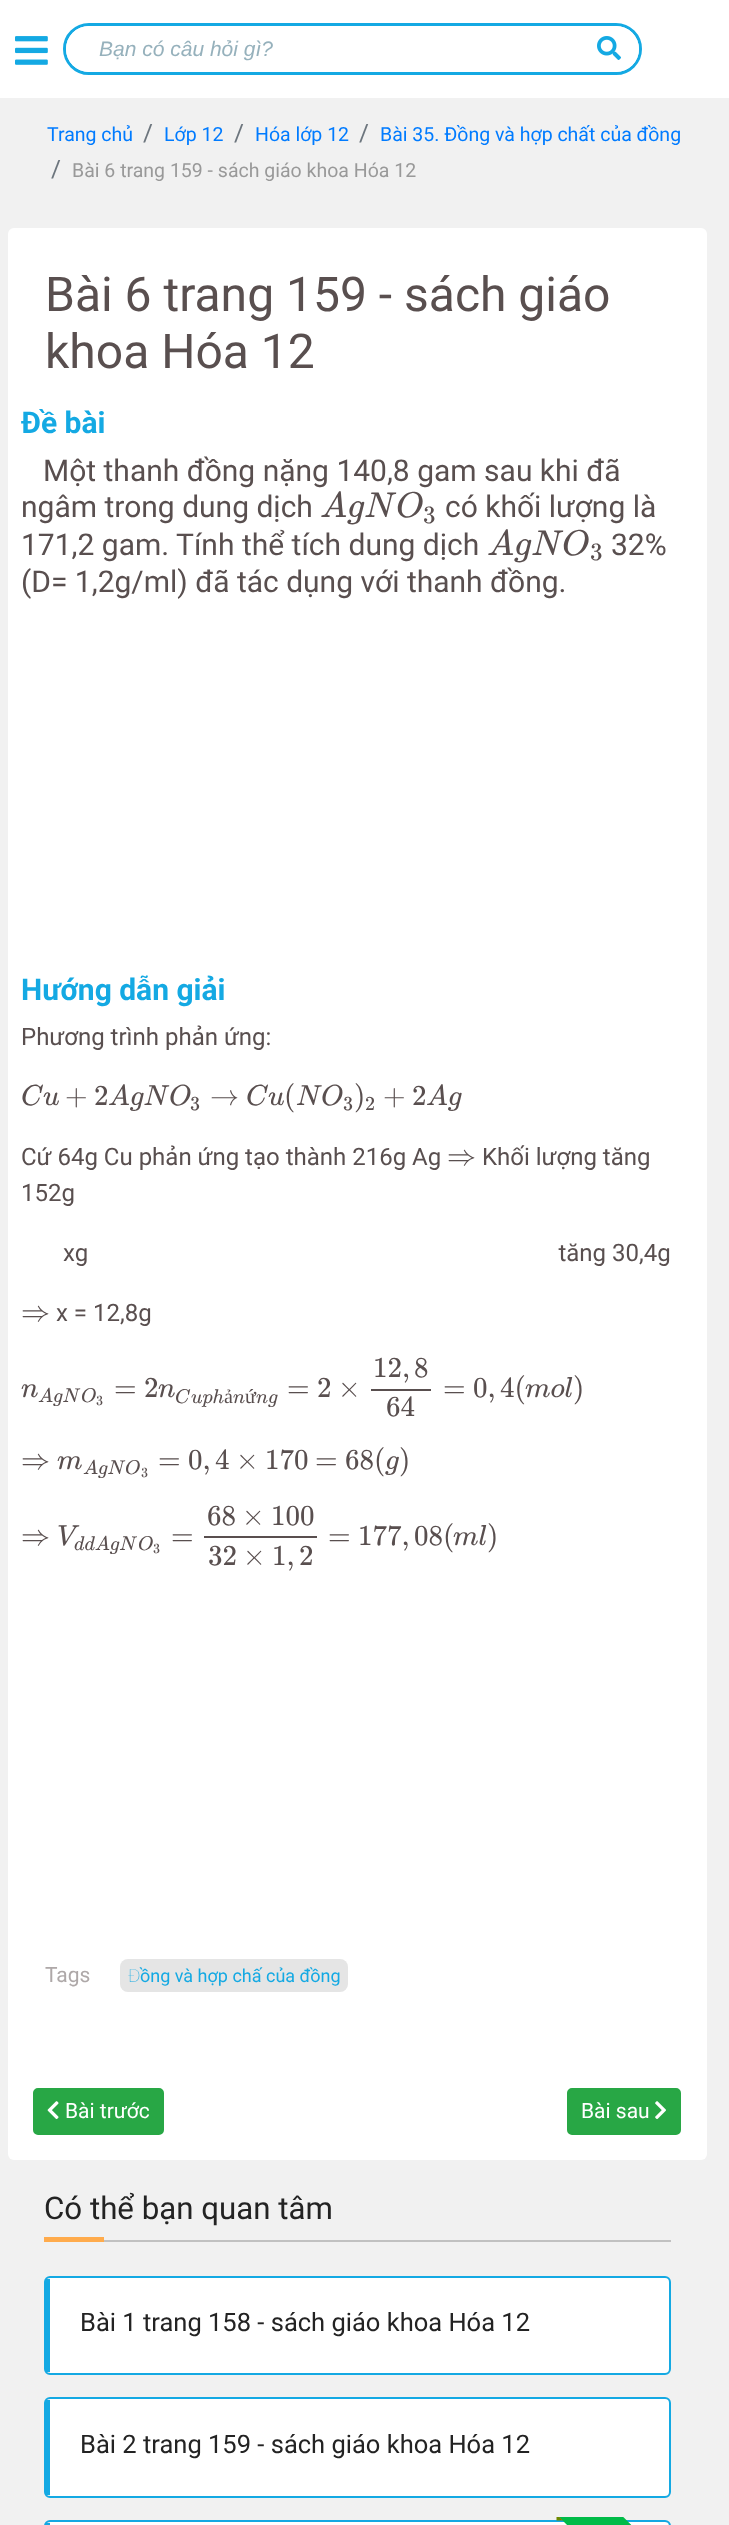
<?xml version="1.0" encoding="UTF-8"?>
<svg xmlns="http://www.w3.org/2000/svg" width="729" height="2525">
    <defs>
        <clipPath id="clip1"><rect x="554" y="2517" width="120" height="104"/></clipPath>
    </defs>
    <rect width="100%" height="100%" fill="#F1F1F1"/>
    <rect x="0" y="0" width="729" height="98" fill="#FFFFFF"/>
    <image x="15" y="36" width="33" height="29" href="img_01.png"/>
    <rect x="64.5" y="24.5" width="576" height="49" rx="24.5" fill="none" stroke="#14A9E3" stroke-width="3"/>
    <rect x="66" y="26" width="513" height="46" rx="23" fill="#FFFFFF"/>
    <text x="99" y="56" font-family="Liberation Sans" font-size="21" font-style="italic" fill="#96B1BC">Bạn có câu hỏi gì?</text>
    <rect x="579" y="26" width="60" height="46" rx="23" fill="#FFFFFF"/>
    <image x="597" y="36" width="24" height="24" href="img_02.png"/>
    <text x="47" y="141" font-family="Roboto" font-size="19.5" fill="#007BFF">Trang chủ</text>
    <text x="143" y="141" font-family="Roboto" font-size="24" fill="#6C757D">/</text>
    <text x="164" y="141" font-family="Roboto" font-size="19.5" fill="#007BFF">Lớp 12</text>
    <text x="234" y="141" font-family="Roboto" font-size="24" fill="#6C757D">/</text>
    <text x="255" y="141" font-family="Roboto" font-size="19.5" fill="#007BFF">Hóa lớp 12</text>
    <text x="359" y="141" font-family="Roboto" font-size="24" fill="#6C757D">/</text>
    <text x="380" y="141" font-family="Roboto" font-size="19.5" fill="#007BFF">Bài 35. Đồng và hợp chất của đồng</text>
    <text x="51" y="177" font-family="Roboto" font-size="24" fill="#6C757D">/</text>
    <text x="72" y="177" font-family="Roboto" font-size="19.5" fill="#999999">Bài 6 trang 159 - sách giáo khoa Hóa 12</text>
    <rect x="8" y="228" width="699" height="1932" rx="6" fill="#FFFFFF"/>
    <text font-family="Roboto" font-size="48" fill="#594F4F">
        <tspan x="45" y="311">Bài 6 trang 159 - sách giáo</tspan>
        <tspan x="45" y="368">khoa Hóa 12</tspan>
    </text>
    <text x="21" y="433" font-family="Roboto" font-size="30" font-weight="700" fill="#14A9E3">Đề bài</text>
    <text x="43" y="481" font-family="Roboto" font-size="30" fill="#594F4F">Một thanh đồng nặng 140,8 gam sau khi đã</text>
    <text x="21" y="517" font-family="Roboto" font-size="30" fill="#594F4F">ngâm trong dung dịch</text>
    <text x="320" y="517" font-family="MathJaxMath" font-size="36" font-style="italic" fill="#594F4F">AgN</text>
    <text x="396" y="517" font-family="MathJaxMath" font-size="36" font-style="italic" fill="#594F4F">O</text>
    <text x="423" y="523" font-family="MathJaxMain" font-size="25" fill="#594F4F">3</text>
    <text x="445" y="517" font-family="Roboto" font-size="30" fill="#594F4F">có khối lượng là</text>
    <text x="21" y="555" font-family="Roboto" font-size="30" fill="#594F4F">171,2 gam. Tính thể tích dung dịch</text>
    <text x="487" y="555" font-family="MathJaxMath" font-size="36" font-style="italic" fill="#594F4F">AgN</text>
    <text x="562" y="555" font-family="MathJaxMath" font-size="36" font-style="italic" fill="#594F4F">O</text>
    <text x="590" y="560" font-family="MathJaxMain" font-size="25" fill="#594F4F">3</text>
    <text x="611" y="555" font-family="Roboto" font-size="30" fill="#594F4F">32%</text>
    <text x="21" y="592" font-family="Roboto" font-size="30" fill="#594F4F">(D= 1,2g/ml) đã tác dụng với thanh đồng.</text>
    <text x="21" y="1000" font-family="Roboto" font-size="30" font-weight="700" fill="#14A9E3">Hướng dẫn giải</text>
    <text x="21" y="1045" font-family="Roboto" font-size="24" fill="#594F4F">Phương trình phản ứng:</text>
    <text x="21" y="1105" font-family="MathJaxMath" font-size="29" font-style="italic" fill="#594F4F">C</text>
    <text x="43" y="1105" font-family="MathJaxMath" font-size="29" font-style="italic" fill="#594F4F">u</text>
    <text x="65" y="1105" font-family="MathJaxMain" font-size="29" fill="#594F4F">+</text>
    <text x="94" y="1105" font-family="MathJaxMain" font-size="29" fill="#594F4F">2</text>
    <text x="108" y="1105" font-family="MathJaxMath" font-size="29" font-style="italic" fill="#594F4F">AgN</text>
    <text x="169" y="1105" font-family="MathJaxMath" font-size="29" font-style="italic" fill="#594F4F">O</text>
    <text x="190" y="1110" font-family="MathJaxMain" font-size="20" fill="#594F4F">3</text>
    <text x="210" y="1105" font-family="MathJaxMain" font-size="29" fill="#594F4F">→</text>
    <text x="246" y="1105" font-family="MathJaxMath" font-size="29" font-style="italic" fill="#594F4F">C</text>
    <text x="268" y="1105" font-family="MathJaxMath" font-size="29" font-style="italic" fill="#594F4F">u</text>
    <text x="284" y="1105" font-family="MathJaxMain" font-size="29" fill="#594F4F">(</text>
    <text x="296" y="1105" font-family="MathJaxMath" font-size="29" font-style="italic" fill="#594F4F">N</text>
    <text x="321" y="1105" font-family="MathJaxMath" font-size="29" font-style="italic" fill="#594F4F">O</text>
    <text x="343" y="1110" font-family="MathJaxMain" font-size="20" fill="#594F4F">3</text>
    <text x="354" y="1105" font-family="MathJaxMain" font-size="29" fill="#594F4F">)</text>
    <text x="365" y="1110" font-family="MathJaxMain" font-size="20" fill="#594F4F">2</text>
    <text x="383" y="1105" font-family="MathJaxMain" font-size="29" fill="#594F4F">+</text>
    <text x="412" y="1105" font-family="MathJaxMain" font-size="29" fill="#594F4F">2</text>
    <text x="426" y="1105" font-family="MathJaxMath" font-size="29" font-style="italic" fill="#594F4F">Ag</text>
    <text x="21" y="1165" font-family="Roboto" font-size="24" fill="#594F4F">Cứ 64g Cu phản ứng tạo thành 216g Ag</text>
    <text x="447" y="1165" font-family="MathJaxMain" font-size="29" fill="#594F4F">⇒</text>
    <text x="482" y="1165" font-family="Roboto" font-size="24" fill="#594F4F">Khối lượng tăng</text>
    <text x="21" y="1201" font-family="Roboto" font-size="24" fill="#594F4F">152g</text>
    <text x="63" y="1261" font-family="Roboto" font-size="24" fill="#594F4F" xml:space="preserve">xg                                                                               tăng 30,4g</text>
    <text x="21" y="1321" font-family="MathJaxMain" font-size="29" fill="#594F4F">⇒</text>
    <text x="56" y="1321" font-family="Roboto" font-size="24" fill="#594F4F">x = 12,8g</text>
    <text x="21" y="1397" font-family="MathJaxMath" font-size="29" font-style="italic" fill="#594F4F">n</text>
    <text x="38" y="1402" font-family="MathJaxMath" font-size="20" font-style="italic" fill="#594F4F">AgN</text>
    <text x="81" y="1402" font-family="MathJaxMath" font-size="20" font-style="italic" fill="#594F4F">O</text>
    <text x="96" y="1405" font-family="MathJaxMain" font-size="14" fill="#594F4F">3</text>
    <text x="114" y="1397" font-family="MathJaxMain" font-size="29" fill="#594F4F">=</text>
    <text x="144" y="1397" font-family="MathJaxMain" font-size="29" fill="#594F4F">2</text>
    <text x="158" y="1397" font-family="MathJaxMath" font-size="29" font-style="italic" fill="#594F4F">n</text>
    <text x="175" y="1403" font-family="MathJaxMath" font-size="20" font-style="italic" fill="#594F4F">C</text>
    <text x="191" y="1403" font-family="MathJaxMath" font-size="20" font-style="italic" fill="#594F4F">uph</text>
    <text x="224" y="1403" font-family="Liberation Serif" font-size="20" fill="#594F4F">ả</text>
    <text x="233" y="1403" font-family="MathJaxMath" font-size="20" font-style="italic" fill="#594F4F">n</text>
    <text x="245" y="1403" font-family="Liberation Serif" font-size="20" fill="#594F4F">ứ</text>
    <text x="256" y="1403" font-family="MathJaxMath" font-size="20" font-style="italic" fill="#594F4F">ng</text>
    <text x="287" y="1397" font-family="MathJaxMain" font-size="29" fill="#594F4F">=</text>
    <text x="317" y="1397" font-family="MathJaxMain" font-size="29" fill="#594F4F">2</text>
    <text x="338" y="1397" font-family="MathJaxMain" font-size="29" fill="#594F4F">×</text>
    <text x="373" y="1377" font-family="MathJaxMain" font-size="29" fill="#594F4F">12,</text>
    <text x="414" y="1377" font-family="MathJaxMain" font-size="29" fill="#594F4F">8</text>
    <rect x="371" y="1389" width="60" height="2" fill="#594F4F"/>
    <text x="386" y="1416" font-family="MathJaxMain" font-size="29" fill="#594F4F">64</text>
    <text x="443" y="1397" font-family="MathJaxMain" font-size="29" fill="#594F4F">=</text>
    <text x="473" y="1397" font-family="MathJaxMain" font-size="29" fill="#594F4F">0,</text>
    <text x="500" y="1397" font-family="MathJaxMain" font-size="29" fill="#594F4F">4(</text>
    <text x="525" y="1397" font-family="MathJaxMath" font-size="29" font-style="italic" fill="#594F4F">mol</text>
    <text x="573" y="1397" font-family="MathJaxMain" font-size="29" fill="#594F4F">)</text>
    <text x="21" y="1469" font-family="MathJaxMain" font-size="29" fill="#594F4F">⇒</text>
    <text x="57" y="1469" font-family="MathJaxMath" font-size="29" font-style="italic" fill="#594F4F">m</text>
    <text x="83" y="1474" font-family="MathJaxMath" font-size="20" font-style="italic" fill="#594F4F">AgN</text>
    <text x="125" y="1474" font-family="MathJaxMath" font-size="20" font-style="italic" fill="#594F4F">O</text>
    <text x="141" y="1477" font-family="MathJaxMain" font-size="14" fill="#594F4F">3</text>
    <text x="158" y="1469" font-family="MathJaxMain" font-size="29" fill="#594F4F">=</text>
    <text x="188" y="1469" font-family="MathJaxMain" font-size="29" fill="#594F4F">0,</text>
    <text x="215" y="1469" font-family="MathJaxMain" font-size="29" fill="#594F4F">4</text>
    <text x="236" y="1469" font-family="MathJaxMain" font-size="29" fill="#594F4F">×</text>
    <text x="265" y="1469" font-family="MathJaxMain" font-size="29" fill="#594F4F">170</text>
    <text x="315" y="1469" font-family="MathJaxMain" font-size="29" fill="#594F4F">=</text>
    <text x="345" y="1469" font-family="MathJaxMain" font-size="29" fill="#594F4F">68(</text>
    <text x="385" y="1469" font-family="MathJaxMath" font-size="29" font-style="italic" fill="#594F4F">g</text>
    <text x="399" y="1469" font-family="MathJaxMain" font-size="29" fill="#594F4F">)</text>
    <text x="21" y="1545" font-family="MathJaxMain" font-size="29" fill="#594F4F">⇒</text>
    <text x="57" y="1545" font-family="MathJaxMath" font-size="29" font-style="italic" fill="#594F4F">V</text>
    <text x="74" y="1550" font-family="MathJaxMath" font-size="20" font-style="italic" fill="#594F4F">ddAgN</text>
    <text x="138" y="1550" font-family="MathJaxMath" font-size="20" font-style="italic" fill="#594F4F">O</text>
    <text x="153" y="1553" font-family="MathJaxMain" font-size="14" fill="#594F4F">3</text>
    <text x="171" y="1545" font-family="MathJaxMain" font-size="29" fill="#594F4F">=</text>
    <text x="207" y="1525" font-family="MathJaxMain" font-size="29" fill="#594F4F">68</text>
    <text x="242" y="1525" font-family="MathJaxMain" font-size="29" fill="#594F4F">×</text>
    <text x="271" y="1525" font-family="MathJaxMain" font-size="29" fill="#594F4F">100</text>
    <rect x="204" y="1536" width="113" height="2" fill="#594F4F"/>
    <text x="208" y="1565" font-family="MathJaxMain" font-size="29" fill="#594F4F">32</text>
    <text x="243" y="1565" font-family="MathJaxMain" font-size="29" fill="#594F4F">×</text>
    <text x="272" y="1565" font-family="MathJaxMain" font-size="29" fill="#594F4F">1,</text>
    <text x="299" y="1565" font-family="MathJaxMain" font-size="29" fill="#594F4F">2</text>
    <text x="328" y="1545" font-family="MathJaxMain" font-size="29" fill="#594F4F">=</text>
    <text x="358" y="1545" font-family="MathJaxMain" font-size="29" fill="#594F4F">177,</text>
    <text x="414" y="1545" font-family="MathJaxMain" font-size="29" fill="#594F4F">08(</text>
    <text x="453" y="1545" font-family="MathJaxMath" font-size="29" font-style="italic" fill="#594F4F">ml</text>
    <text x="487" y="1545" font-family="MathJaxMain" font-size="29" fill="#594F4F">)</text>
    <text x="45" y="1982" font-family="Roboto" font-size="21" fill="#AEA8A8">Tags</text>
    <rect x="120" y="1959" width="228" height="33" rx="8" fill="#E5E5E5"/>
    <text x="128" y="1982" font-family="Noto Sans" font-size="18" font-weight="100" fill="#14A9E3">Đ</text>
    <text x="140" y="1982" font-family="Roboto" font-size="18" fill="#14A9E3">ồng và hợp chấ của đồng</text>
    <rect x="34" y="2089" width="129" height="45" rx="4" fill="#28A745" stroke="#28A745" stroke-width="2"/>
    <image x="47" y="2101" width="12" height="19" href="img_03.png"/>
    <text x="65" y="2118" font-family="Roboto" font-size="21" fill="#FFFFFF">Bài trước</text>
    <rect x="568" y="2089" width="112" height="45" rx="4" fill="#28A745" stroke="#28A745" stroke-width="2"/>
    <text x="581" y="2118" font-family="Roboto" font-size="21" fill="#FFFFFF">Bài sau</text>
    <image x="655" y="2101" width="11" height="18" href="img_04.png"/>
    <text x="44" y="2219" font-family="Roboto" font-size="31.25" fill="#232323">Có thể bạn quan tâm</text>
    <rect x="44" y="2237" width="60" height="5" fill="#FFAB4C"/>
    <rect x="104" y="2240" width="567" height="2" fill="#C1C1C1"/>
    <path d="M 50 2277 H 664 C 667 2277 669 2279 669 2282 V 2368 C 669 2371 667 2373 664 2373 H 50 Z" fill="#FFFFFF"/>
    <rect x="45" y="2277" width="625" height="97" rx="5" fill="none" stroke="#14A9E3" stroke-width="2"/>
    <rect x="46" y="2279" width="4" height="93" fill="#14A9E3"/>
    <text x="80" y="2331" font-family="Roboto" font-size="25.5" fill="#232323">Bài 1 trang 158 - sách giáo khoa Hóa 12</text>
    <path d="M 50 2398 H 664 C 667 2398 669 2401 669 2403 V 2492 C 669 2494 667 2496 664 2496 H 50 Z" fill="#FFFFFF"/>
    <rect x="45" y="2398" width="625" height="99" rx="5" fill="none" stroke="#14A9E3" stroke-width="2"/>
    <rect x="46" y="2400" width="4" height="95" fill="#14A9E3"/>
    <text x="80" y="2453" font-family="Roboto" font-size="25.5" fill="#232323">Bài 2 trang 159 - sách giáo khoa Hóa 12</text>
    <path d="M 50 2522 H 664 C 667 2522 669 2524 669 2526 V 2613 C 669 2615 667 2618 664 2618 H 50 Z" fill="#FFFFFF"/>
    <rect x="45" y="2521" width="625" height="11" rx="5" fill="none" stroke="#14A9E3" stroke-width="2"/>
    <rect x="45" y="2523" width="5" height="2" fill="#14A9E3"/>
    <g clip-path="url(#clip1)">
        <path d="M 588 2482 L 716 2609 L 684 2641 L 556 2514 Z" fill="#00BB48"/>
        <path d="M 556.5 2514 L 563 2520.5 H 556.5 Z" fill="#6E8900"/>
    </g>
</svg>
